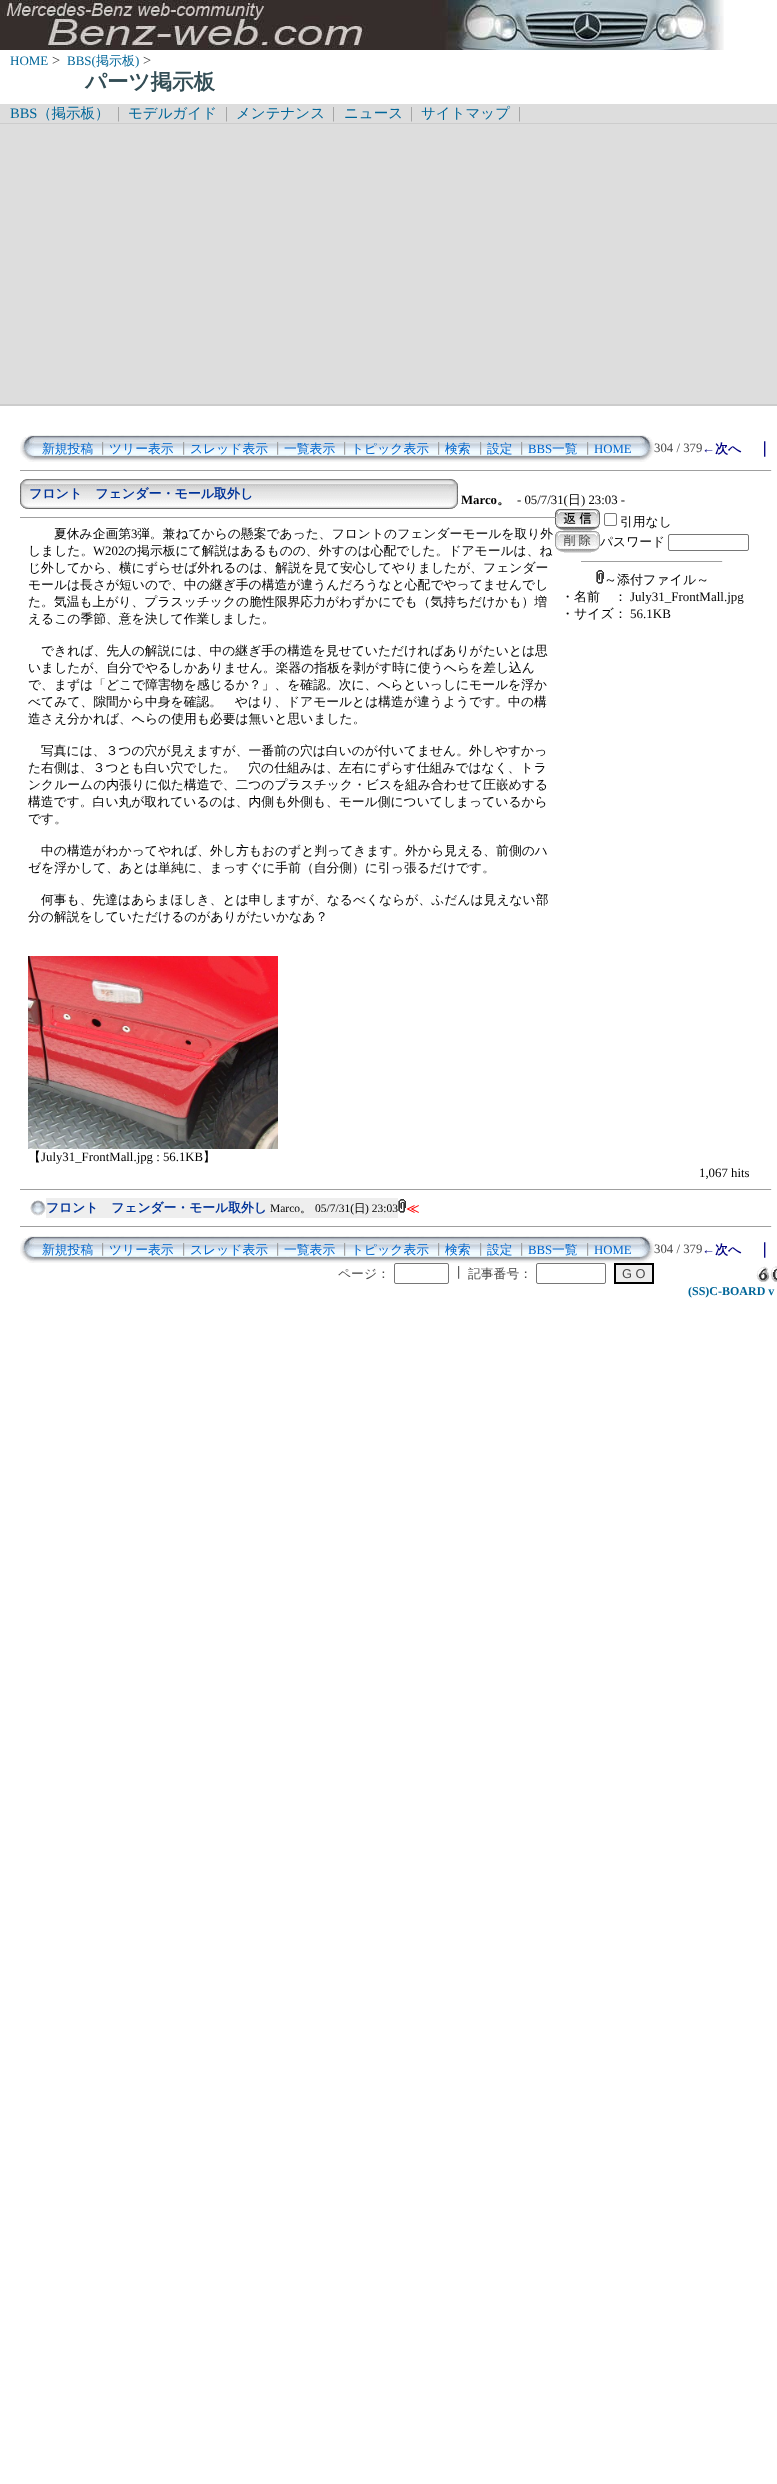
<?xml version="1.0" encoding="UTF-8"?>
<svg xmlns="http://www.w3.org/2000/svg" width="777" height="2484">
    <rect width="100%" height="100%" fill="#FFFFFF"/>
    <image x="0" y="0" width="724" height="50" href="img_01.png"/>
    <text x="10" y="65" font-family="Liberation Serif" font-size="13" fill="#006699">HOME</text>
    <text x="52" y="65" font-family="Liberation Serif" font-size="14.5" fill="#333333">&gt;</text>
    <text x="67" y="65" font-family="Liberation Serif" font-size="13" fill="#006699">BBS(</text>
    <text x="96" y="65" font-family="WenQuanYi Zen Hei" font-size="13" font-weight="500" fill="#006699">掲示板</text>
    <text x="135" y="65" font-family="Liberation Serif" font-size="13" fill="#006699">)</text>
    <text x="143" y="65" font-family="Liberation Serif" font-size="14.5" fill="#333333">&gt;</text>
    <text x="85" y="89" font-family="WenQuanYi Zen Hei" font-size="21.5" font-weight="700" fill="#334D55">パーツ掲示板</text>
    <rect x="0" y="404" width="777" height="2" fill="#CCCCCC"/>
    <rect x="0" y="104" width="777" height="19" fill="#DDDDDD"/>
    <rect x="0" y="123" width="777" height="1" fill="#CCCCCC"/>
    <text x="10" y="118" font-family="Liberation Serif" font-size="14.5" fill="#006699">BBS</text>
    <text x="37" y="118" font-family="WenQuanYi Zen Hei" font-size="14.5" font-weight="500" fill="#006699">（掲示板）</text>
    <text x="117" y="118" font-family="Liberation Serif" font-size="16" fill="#999999">|</text>
    <text x="128" y="118" font-family="WenQuanYi Zen Hei" font-size="14.5" font-weight="500" fill="#006699">モデルガイド</text>
    <text x="225" y="118" font-family="Liberation Serif" font-size="16" fill="#999999">|</text>
    <text x="236" y="118" font-family="WenQuanYi Zen Hei" font-size="14.5" font-weight="500" fill="#006699">メンテナンス</text>
    <text x="332" y="118" font-family="Liberation Serif" font-size="16" fill="#999999">|</text>
    <text x="344" y="118" font-family="WenQuanYi Zen Hei" font-size="14.5" font-weight="500" fill="#006699">ニュース</text>
    <text x="410" y="118" font-family="Liberation Serif" font-size="16" fill="#999999">|</text>
    <text x="421" y="118" font-family="WenQuanYi Zen Hei" font-size="14.5" font-weight="500" fill="#006699">サイトマップ</text>
    <text x="518" y="118" font-family="Liberation Serif" font-size="16" fill="#999999">|</text>
    <rect x="0" y="124" width="777" height="280" fill="#DDDDDD"/>
    <image x="20" y="435" width="14" height="27" href="img_02.png"/>
    <image x="34" y="435" width="606" height="27" href="img_03.png"/>
    <text x="42" y="453" font-family="WenQuanYi Zen Hei" font-size="12.8" font-weight="500" fill="#0066CC">新規投稿</text>
    <text x="96" y="453" font-family="WenQuanYi Zen Hei" font-size="12.8" font-weight="500" fill="#999999">┃</text>
    <text x="109" y="453" font-family="WenQuanYi Zen Hei" font-size="12.8" font-weight="500" fill="#0066CC">ツリー表示</text>
    <text x="177" y="453" font-family="WenQuanYi Zen Hei" font-size="12.8" font-weight="500" fill="#999999">┃</text>
    <text x="190" y="453" font-family="WenQuanYi Zen Hei" font-size="12.8" font-weight="500" fill="#0066CC">スレッド表示</text>
    <text x="271" y="453" font-family="WenQuanYi Zen Hei" font-size="12.8" font-weight="500" fill="#999999">┃</text>
    <text x="284" y="453" font-family="WenQuanYi Zen Hei" font-size="12.8" font-weight="500" fill="#0066CC">一覧表示</text>
    <text x="338" y="453" font-family="WenQuanYi Zen Hei" font-size="12.8" font-weight="500" fill="#999999">┃</text>
    <text x="351" y="453" font-family="WenQuanYi Zen Hei" font-size="12.8" font-weight="500" fill="#0066CC">トピック表示</text>
    <text x="432" y="453" font-family="WenQuanYi Zen Hei" font-size="12.8" font-weight="500" fill="#999999">┃</text>
    <text x="445" y="453" font-family="WenQuanYi Zen Hei" font-size="12.8" font-weight="500" fill="#0066CC">検索</text>
    <text x="474" y="453" font-family="WenQuanYi Zen Hei" font-size="12.8" font-weight="500" fill="#999999">┃</text>
    <text x="487" y="453" font-family="WenQuanYi Zen Hei" font-size="12.8" font-weight="500" fill="#0066CC">設定</text>
    <text x="515" y="453" font-family="WenQuanYi Zen Hei" font-size="12.8" font-weight="500" fill="#999999">┃</text>
    <text x="528" y="453" font-family="Liberation Serif" font-size="12.8" fill="#0066CC">BBS</text>
    <text x="552" y="453" font-family="WenQuanYi Zen Hei" font-size="12.8" font-weight="500" fill="#0066CC">一覧</text>
    <text x="581" y="453" font-family="WenQuanYi Zen Hei" font-size="12.8" font-weight="500" fill="#999999">┃</text>
    <text x="594" y="453" font-family="Liberation Serif" font-size="12.8" fill="#0066CC">HOME</text>
    <image x="640" y="435" width="14" height="27" href="img_04.png"/>
    <text x="654" y="452" font-family="Liberation Serif" font-size="12.8" fill="#494949">304 / 379</text>
    <text x="702" y="453" font-family="Liberation Serif" font-size="13" font-weight="700" fill="#000080">←</text>
    <text x="715" y="453" font-family="WenQuanYi Zen Hei" font-size="13" font-weight="700" fill="#000080">次へ</text>
    <text x="757" y="453" font-family="WenQuanYi Zen Hei" font-size="15" font-weight="700" fill="#000080">｜</text>
    <rect x="20" y="470" width="752" height="1" fill="#9F9F9F"/>
    <rect x="771" y="470" width="1" height="1" fill="#EEEEEE"/>
    <image x="20" y="479" width="9" height="30" href="img_05.png"/>
    <image x="29" y="479" width="420" height="30" href="img_06.png"/>
    <text x="29" y="498" font-family="WenQuanYi Zen Hei" font-size="13" font-weight="700" fill="#003399">フロント　フェンダー・モール取外し</text>
    <image x="449" y="479" width="9" height="30" href="img_07.png"/>
    <text x="461" y="504" font-family="Liberation Serif" font-size="12.8" font-weight="700" fill="#000000">Marco</text>
    <text x="497" y="504" font-family="WenQuanYi Zen Hei" font-size="12.8" font-weight="700" fill="#000000">。</text>
    <text x="517" y="504" font-family="Liberation Serif" font-size="12.8" fill="#000000">- 05/7/31(</text>
    <text x="568" y="504" font-family="WenQuanYi Zen Hei" font-size="12.8" font-weight="500" fill="#000000">日</text>
    <text x="581" y="504" font-family="Liberation Serif" font-size="12.8" fill="#000000">) 23:03 -</text>
    <text x="54" y="538" font-family="WenQuanYi Zen Hei" font-size="12.8" font-weight="500" fill="#000000">夏休み企画第</text>
    <text x="131" y="538" font-family="Liberation Serif" font-size="12.8" fill="#000000">3</text>
    <text x="137" y="538" font-family="WenQuanYi Zen Hei" font-size="12.8" font-weight="500" fill="#000000">弾。兼ねてからの懸案であった、フロントのフェンダーモールを取り外</text>
    <text x="28" y="555" font-family="WenQuanYi Zen Hei" font-size="12.8" font-weight="500" fill="#000000">しました。</text>
    <text x="93" y="555" font-family="Liberation Serif" font-size="12.8" fill="#000000">W202</text>
    <text x="124" y="555" font-family="WenQuanYi Zen Hei" font-size="12.8" font-weight="500" fill="#000000">の掲示板にて解説はあるものの、外すのは心配でした。ドアモールは、ね</text>
    <text font-family="WenQuanYi Zen Hei" font-size="12.8" font-weight="500" fill="#000000">
        <tspan x="28" y="572">じ外してから、横にずらせば外れるのは、解説を見て安心してやりましたが、フェンダー</tspan>
        <tspan x="28" y="589">モールは長さが短いので、中の継ぎ手の構造が違うんだろうなと心配でやってませんでし</tspan>
        <tspan x="28" y="606">た。気温も上がり、プラスッチックの脆性限界応力がわずかにでも（気持ちだけかも）増</tspan>
        <tspan x="28" y="623">えるこの季節、意を決して作業しました。</tspan>
    </text>
    <text x="41" y="655" font-family="WenQuanYi Zen Hei" font-size="12.8" font-weight="500" fill="#000000">できれば、先人の解説には、中の継ぎ手の構造を見せていただければありがたいとは思</text>
    <text font-family="WenQuanYi Zen Hei" font-size="12.8" font-weight="500" fill="#000000">
        <tspan x="28" y="672">いましたが、自分でやるしかありません。楽器の指板を剥がす時に使うへらを差し込ん</tspan>
        <tspan x="28" y="689">で、まずは「どこで障害物を感じるか？」、を確認。次に、へらといっしにモールを浮か</tspan>
        <tspan x="28" y="706">べてみて、隙間から中身を確認。　やはり、ドアモールとは構造が違うようです。中の構</tspan>
        <tspan x="28" y="723">造さえ分かれば、へらの使用も必要は無いと思いました。</tspan>
    </text>
    <text x="41" y="755" font-family="WenQuanYi Zen Hei" font-size="12.8" font-weight="500" fill="#000000">写真には、３つの穴が見えますが、一番前の穴は白いのが付いてません。外しやすかっ</text>
    <text font-family="WenQuanYi Zen Hei" font-size="12.8" font-weight="500" fill="#000000">
        <tspan x="28" y="772">た右側は、３つとも白い穴でした。　穴の仕組みは、左右にずらす仕組みではなく、トラ</tspan>
        <tspan x="28" y="789">ンクルームの内張りに似た構造で、二つのプラスチック・ビスを組み合わせて圧嵌めする</tspan>
        <tspan x="28" y="806">構造です。白い丸が取れているのは、内側も外側も、モール側についてしまっているから</tspan>
        <tspan x="28" y="823">です。</tspan>
    </text>
    <text x="41" y="855" font-family="WenQuanYi Zen Hei" font-size="12.8" font-weight="500" fill="#000000">中の構造がわかってやれば、外し方もおのずと判ってきます。外から見える、前側のハ</text>
    <text x="28" y="872" font-family="WenQuanYi Zen Hei" font-size="12.8" font-weight="500" fill="#000000">ゼを浮かして、あとは単純に、まっすぐに手前（自分側）に引っ張るだけです。</text>
    <text x="41" y="904" font-family="WenQuanYi Zen Hei" font-size="12.8" font-weight="500" fill="#000000">何事も、先達はあらまほしき、とは申しますが、なるべくならが、ふだんは見えない部</text>
    <text x="28" y="921" font-family="WenQuanYi Zen Hei" font-size="12.8" font-weight="500" fill="#000000">分の解説をしていただけるのがありがたいかなあ？</text>
    <image x="28" y="956" width="250" height="193" href="img_08.png"/>
    <text x="28" y="1161" font-family="WenQuanYi Zen Hei" font-size="12.8" font-weight="500" fill="#000000">【</text>
    <text x="41" y="1161" font-family="Liberation Serif" font-size="12.8" fill="#000000">July31_FrontMall.jpg : 56.1KB</text>
    <text x="203" y="1161" font-family="WenQuanYi Zen Hei" font-size="12.8" font-weight="500" fill="#000000">】</text>
    <image x="555" y="509" width="45" height="22" href="img_09.png"/>
    <rect x="20" y="517" width="537" height="1" fill="#9F9F9F"/>
    <rect x="556" y="517" width="1" height="1" fill="#EEEEEE"/>
    <rect x="604.5" y="513.5" width="12" height="12" rx="1.5" fill="none" stroke="#767676"/>
    <text x="620" y="526" font-family="WenQuanYi Zen Hei" font-size="12.8" font-weight="500" fill="#000000">引用なし</text>
    <image x="555" y="531" width="45" height="22" href="img_10.png"/>
    <text x="600" y="546" font-family="WenQuanYi Zen Hei" font-size="12.8" font-weight="500" fill="#000000">パスワード</text>
    <rect x="668.5" y="534.5" width="80" height="16" rx="1.5" fill="none" stroke="#767676"/>
    <rect x="581" y="561" width="142" height="1" fill="#9F9F9F"/>
    <rect x="722" y="561" width="1" height="1" fill="#EEEEEE"/>
    <image x="596" y="570" width="8" height="14" href="img_11.png"/>
    <text x="604" y="584" font-family="WenQuanYi Zen Hei" font-size="13" font-weight="500" fill="#000000">～添付ファイル～</text>
    <text x="561" y="601" font-family="WenQuanYi Zen Hei" font-size="13" font-weight="500" fill="#000000">・名前</text>
    <text x="614" y="601" font-family="WenQuanYi Zen Hei" font-size="13" font-weight="500" fill="#000000">：</text>
    <text x="630" y="601" font-family="Liberation Serif" font-size="13" fill="#000000">July31_FrontMall.jpg</text>
    <text x="561" y="618" font-family="WenQuanYi Zen Hei" font-size="13" font-weight="500" fill="#000000">・サイズ：</text>
    <text x="630" y="618" font-family="Liberation Serif" font-size="13" fill="#000000">56.1KB</text>
    <text x="699" y="1177" font-family="Liberation Serif" font-size="12.8" fill="#000000">1,067 hits</text>
    <rect x="20" y="1189" width="752" height="1" fill="#9F9F9F"/>
    <rect x="771" y="1189" width="1" height="1" fill="#EEEEEE"/>
    <image x="30" y="1200" width="16" height="16" href="img_12.png"/>
    <rect x="46" y="1198" width="352" height="20" fill="#EEEEEE"/>
    <text x="46" y="1212" font-family="WenQuanYi Zen Hei" font-size="12.8" font-weight="700" fill="#003399">フロント　フェンダー・モール取外し</text>
    <text x="270" y="1212" font-family="Liberation Serif" font-size="11.5" fill="#000000">Marco</text>
    <text x="300" y="1212" font-family="WenQuanYi Zen Hei" font-size="11.5" font-weight="500" fill="#000000">。</text>
    <text x="315" y="1212" font-family="Liberation Serif" font-size="11.5" fill="#000000">05/7/31(</text>
    <text x="354" y="1212" font-family="WenQuanYi Zen Hei" font-size="11.5" font-weight="500" fill="#000000">日</text>
    <text x="365" y="1212" font-family="Liberation Serif" font-size="11.5" fill="#000000">) 23:03</text>
    <image x="398" y="1199" width="8" height="14" href="img_11.png"/>
    <text x="406" y="1213" font-family="WenQuanYi Zen Hei" font-size="13" font-weight="700" fill="#FF0000">≪</text>
    <rect x="20" y="1226" width="752" height="1" fill="#9F9F9F"/>
    <rect x="771" y="1226" width="1" height="1" fill="#EEEEEE"/>
    <image x="20" y="1236" width="14" height="27" href="img_02.png"/>
    <image x="34" y="1236" width="606" height="27" href="img_03.png"/>
    <text x="42" y="1254" font-family="WenQuanYi Zen Hei" font-size="12.8" font-weight="500" fill="#0066CC">新規投稿</text>
    <text x="96" y="1254" font-family="WenQuanYi Zen Hei" font-size="12.8" font-weight="500" fill="#999999">┃</text>
    <text x="109" y="1254" font-family="WenQuanYi Zen Hei" font-size="12.8" font-weight="500" fill="#0066CC">ツリー表示</text>
    <text x="177" y="1254" font-family="WenQuanYi Zen Hei" font-size="12.8" font-weight="500" fill="#999999">┃</text>
    <text x="190" y="1254" font-family="WenQuanYi Zen Hei" font-size="12.8" font-weight="500" fill="#0066CC">スレッド表示</text>
    <text x="271" y="1254" font-family="WenQuanYi Zen Hei" font-size="12.8" font-weight="500" fill="#999999">┃</text>
    <text x="284" y="1254" font-family="WenQuanYi Zen Hei" font-size="12.8" font-weight="500" fill="#0066CC">一覧表示</text>
    <text x="338" y="1254" font-family="WenQuanYi Zen Hei" font-size="12.8" font-weight="500" fill="#999999">┃</text>
    <text x="351" y="1254" font-family="WenQuanYi Zen Hei" font-size="12.8" font-weight="500" fill="#0066CC">トピック表示</text>
    <text x="432" y="1254" font-family="WenQuanYi Zen Hei" font-size="12.8" font-weight="500" fill="#999999">┃</text>
    <text x="445" y="1254" font-family="WenQuanYi Zen Hei" font-size="12.8" font-weight="500" fill="#0066CC">検索</text>
    <text x="474" y="1254" font-family="WenQuanYi Zen Hei" font-size="12.8" font-weight="500" fill="#999999">┃</text>
    <text x="487" y="1254" font-family="WenQuanYi Zen Hei" font-size="12.8" font-weight="500" fill="#0066CC">設定</text>
    <text x="515" y="1254" font-family="WenQuanYi Zen Hei" font-size="12.8" font-weight="500" fill="#999999">┃</text>
    <text x="528" y="1254" font-family="Liberation Serif" font-size="12.8" fill="#0066CC">BBS</text>
    <text x="552" y="1254" font-family="WenQuanYi Zen Hei" font-size="12.8" font-weight="500" fill="#0066CC">一覧</text>
    <text x="581" y="1254" font-family="WenQuanYi Zen Hei" font-size="12.8" font-weight="500" fill="#999999">┃</text>
    <text x="594" y="1254" font-family="Liberation Serif" font-size="12.8" fill="#0066CC">HOME</text>
    <image x="640" y="1236" width="14" height="27" href="img_04.png"/>
    <text x="654" y="1253" font-family="Liberation Serif" font-size="12.8" fill="#494949">304 / 379</text>
    <text x="702" y="1254" font-family="Liberation Serif" font-size="13" font-weight="700" fill="#000080">←</text>
    <text x="715" y="1254" font-family="WenQuanYi Zen Hei" font-size="13" font-weight="700" fill="#000080">次へ</text>
    <text x="757" y="1254" font-family="WenQuanYi Zen Hei" font-size="15" font-weight="700" fill="#000080">｜</text>
    <text x="338" y="1278" font-family="WenQuanYi Zen Hei" font-size="12.8" font-weight="500" fill="#494949">ページ：</text>
    <rect x="394.5" y="1263.5" width="54" height="20" rx="1.5" fill="none" stroke="#767676"/>
    <text x="452" y="1277" font-family="WenQuanYi Zen Hei" font-size="12.8" font-weight="500" fill="#494949">┃</text>
    <text x="468" y="1278" font-family="WenQuanYi Zen Hei" font-size="12.8" font-weight="500" fill="#494949">記事番号：</text>
    <rect x="536.5" y="1263.5" width="69" height="20" rx="1.5" fill="none" stroke="#767676"/>
    <rect x="615" y="1264" width="38" height="19" fill="#EEEEEE" stroke="#000000" stroke-width="2"/>
    <text x="622" y="1278" font-family="Liberation Sans" font-size="12.8" fill="#494949">G O</text>
    <image x="756" y="1266" width="14" height="16" href="img_13.png"/>
    <image x="770" y="1266" width="7" height="16" href="img_14.png"/>
    <text x="688" y="1295" font-family="Liberation Serif" font-size="12" font-weight="700" fill="#006699">(SS)C-BOARD v</text>
</svg>
